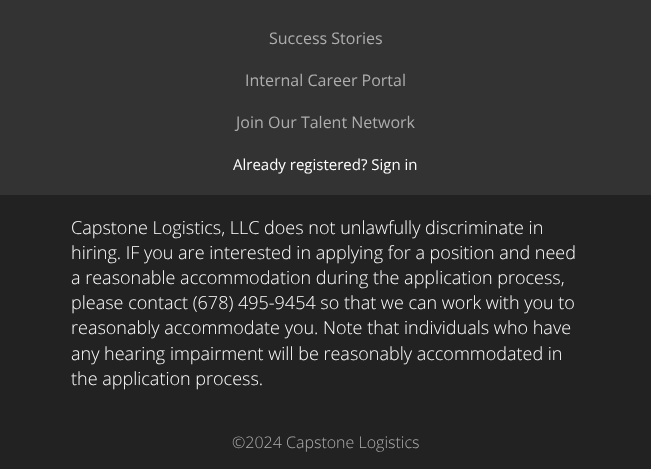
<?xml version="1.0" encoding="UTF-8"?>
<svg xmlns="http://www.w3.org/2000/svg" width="651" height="469">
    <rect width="100%" height="100%" fill="#333333"/>
    <text x="269" y="44" font-family="Open Sans" font-size="16" fill="#ADADAD">Success Stories</text>
    <text x="245" y="86" font-family="Open Sans" font-size="16" fill="#ADADAD">Internal Career Portal</text>
    <text x="236" y="128" font-family="Open Sans" font-size="16" fill="#ADADAD">Join Our Talent Network</text>
    <text x="233" y="170" font-family="Open Sans" font-size="15" fill="#FFFFFF">Already registered? Sign in</text>
    <rect x="0" y="195" width="651" height="274" fill="#222222"/>
    <text font-family="Open Sans" font-size="18" font-weight="300" fill="#FFFFFF">
        <tspan x="71" y="234">Capstone Logistics, LLC does not unlawfully discriminate in</tspan>
        <tspan x="71" y="259">hiring. IF you are interested in applying for a position and need</tspan>
        <tspan x="71" y="284">a reasonable accommodation during the application process,</tspan>
        <tspan x="71" y="309">please contact (678) 495-9454 so that we can work with you to</tspan>
        <tspan x="71" y="334">reasonably accommodate you. Note that individuals who have</tspan>
        <tspan x="71" y="360">any hearing impairment will be reasonably accommodated in</tspan>
        <tspan x="71" y="385">the application process.</tspan>
    </text>
    <text x="232" y="448" font-family="Open Sans" font-size="16" font-weight="300" fill="#ADADAD">©2024 Capstone Logistics</text>
</svg>
